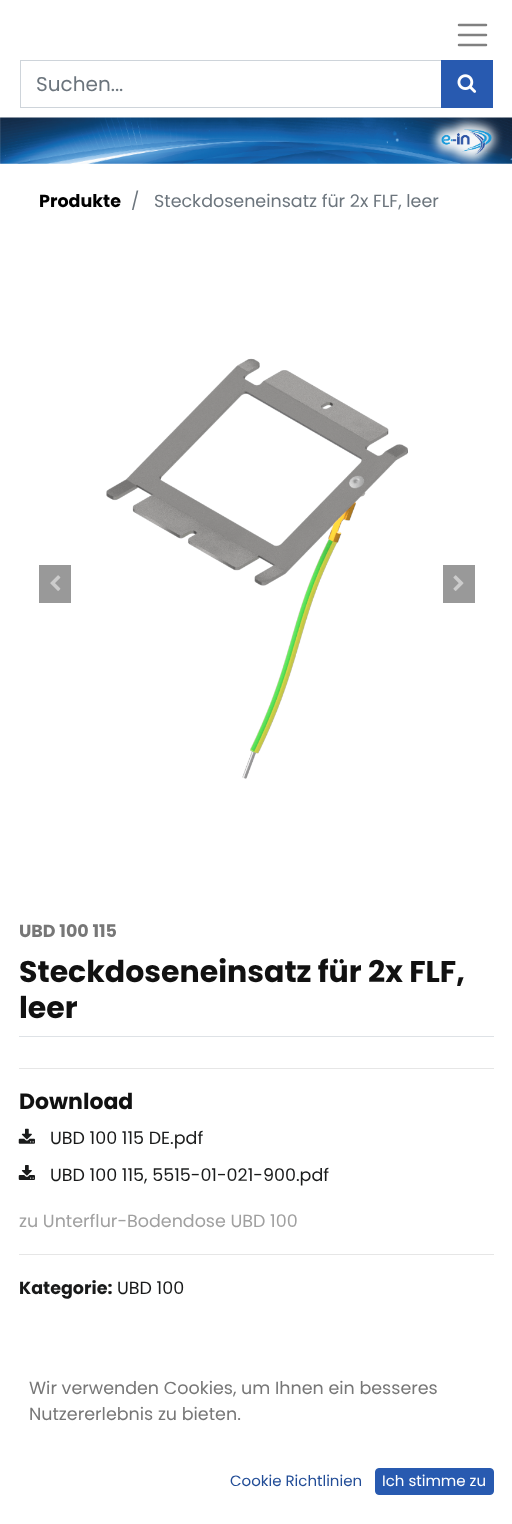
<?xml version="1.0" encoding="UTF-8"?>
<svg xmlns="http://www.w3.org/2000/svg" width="512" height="1524">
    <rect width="100%" height="100%" fill="#FFFFFF"/>
    <path d="M 459 25 H 486 M 459 35 H 486 M 459 45 H 486" fill="none" stroke="#808080" stroke-width="2.5" stroke-linecap="round"/>
    <rect x="20.5" y="60.5" width="422" height="47" fill="none" stroke="#CED4DA"/>
    <text x="36" y="91" font-family="Poppins" font-size="20" fill="#6C757D">Suchen...</text>
    <rect x="441" y="60" width="52" height="48" fill="#285AB0"/>
    <image x="457" y="74" width="20" height="19" href="img_01.png"/>
    <image x="0" y="117" width="512" height="47" href="img_02.png"/>
    <text x="39" y="207" font-family="Poppins" font-size="17.5" font-weight="700" fill="#000000">Produkte</text>
    <text x="131" y="207" font-family="Poppins" font-size="17.5" fill="#6C757D">/</text>
    <text x="154" y="207" font-family="Poppins" font-size="17.5" fill="#6C757D">Steckdoseneinsatz für 2x FLF, leer</text>
    <rect x="39" y="565" width="32" height="38" fill="#999999"/>
    <image x="50" y="575" width="11" height="16" href="img_03.png"/>
    <image x="106" y="358" width="302" height="421" href="img_04.png"/>
    <rect x="443" y="565" width="32" height="38" fill="#999999"/>
    <image x="453" y="575" width="11" height="16" href="img_05.png"/>
    <text x="19" y="937" font-family="Poppins" font-size="17.5" font-weight="700" fill="#777777">UBD 100 115</text>
    <text font-family="Poppins" font-size="30" font-weight="700" fill="#111111">
        <tspan x="19" y="982">Steckdoseneinsatz für 2x FLF,</tspan>
        <tspan x="19" y="1018">leer</tspan>
    </text>
    <rect x="19" y="1036" width="475" height="1" fill="#DEE2E6"/>
    <rect x="19" y="1068" width="475" height="1" fill="#E6E6E6"/>
    <text x="19" y="1109" font-family="Poppins" font-size="22" font-weight="700" fill="#111111">Download</text>
    <image x="18" y="1128" width="17" height="16" href="img_06.png"/>
    <text x="50" y="1144" font-family="Poppins" font-size="17.5" fill="#191A1A">UBD 100 115 DE.pdf</text>
    <image x="18" y="1165" width="17" height="15" href="img_07.png"/>
    <text x="50" y="1181" font-family="Poppins" font-size="17.5" fill="#191A1A">UBD 100 115, 5515-01-021-900.pdf</text>
    <text x="19" y="1227" font-family="Poppins" font-size="17.5" fill="#A0A0A0">zu Unterflur-Bodendose UBD 100</text>
    <rect x="19" y="1254" width="475" height="1" fill="#E6E6E6"/>
    <text x="19" y="1294" font-family="Poppins" font-size="17.5" font-weight="700" fill="#191A1A">Kategorie:</text>
    <text x="117" y="1294" font-family="Poppins" font-size="17.5" fill="#191A1A">UBD 100</text>
    <text font-family="Poppins" font-size="17.5" fill="#777777">
        <tspan x="29" y="1394">Wir verwenden Cookies, um Ihnen ein besseres</tspan>
        <tspan x="29" y="1420">Nutzererlebnis zu bieten.</tspan>
    </text>
    <text x="230" y="1486" font-family="Poppins" font-size="15" fill="#224D97">Cookie Richtlinien</text>
    <rect x="375.5" y="1468.5" width="118" height="26" rx="3.5" fill="#285AB0" stroke="#285AB0"/>
    <text x="382" y="1486" font-family="Poppins" font-size="15" fill="#FFFFFF">Ich stimme zu</text>
</svg>
